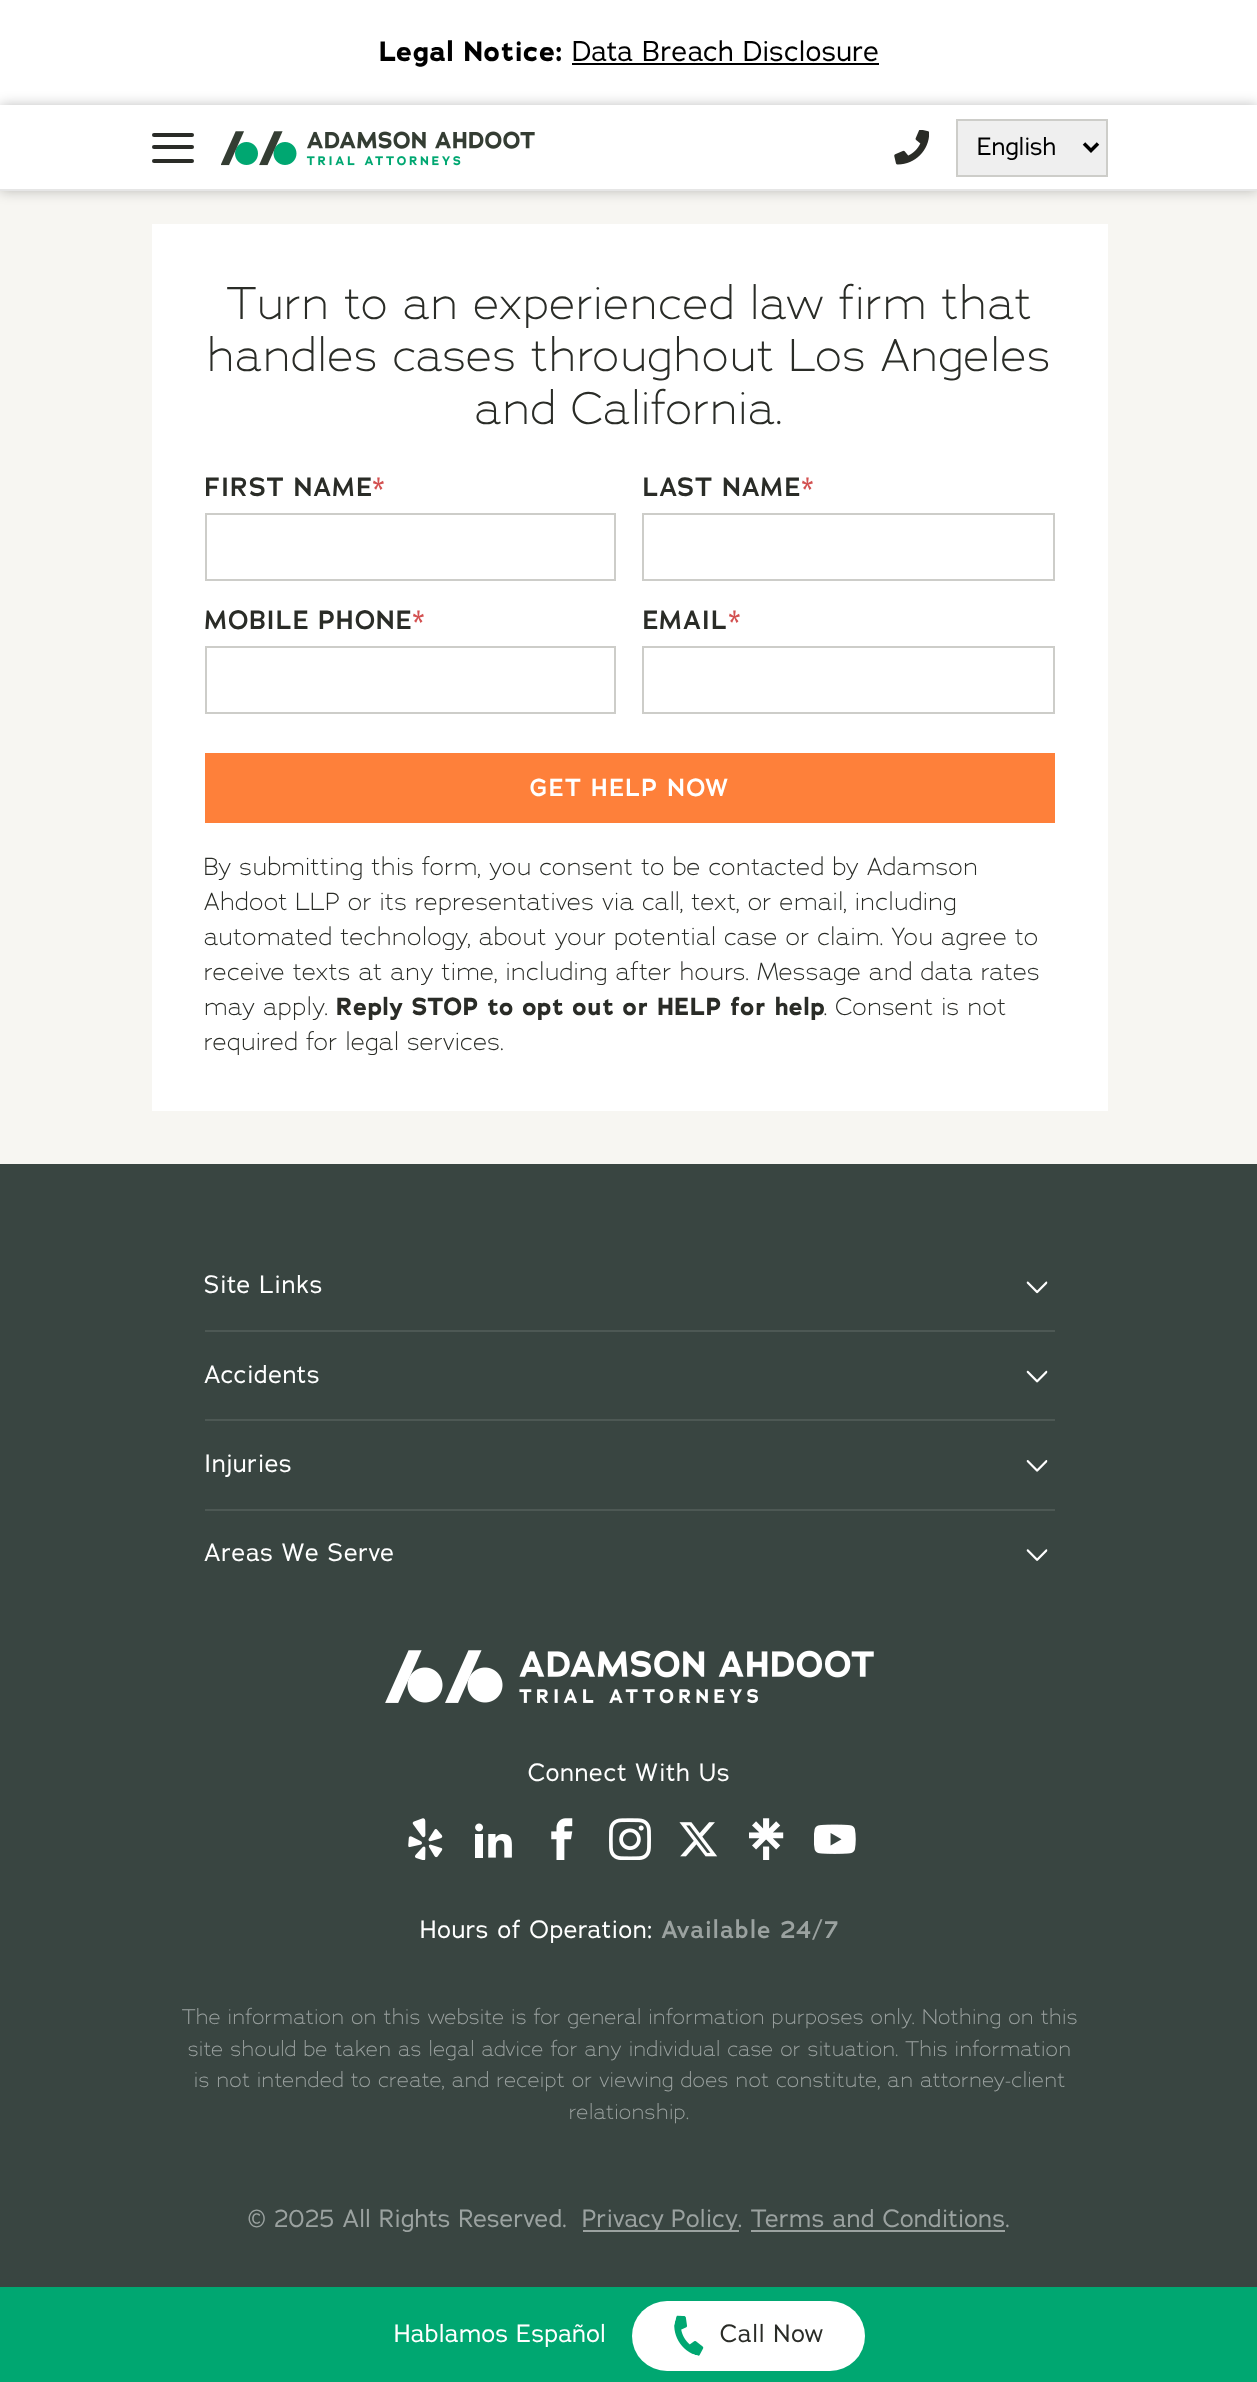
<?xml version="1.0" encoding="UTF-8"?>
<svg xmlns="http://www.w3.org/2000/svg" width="1257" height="2382">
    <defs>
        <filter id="blur1" x="-50%" y="-200%" width="200%" height="500%"><feGaussianBlur stdDeviation="6.5"/></filter>
    </defs>
    <rect width="100%" height="100%" fill="#F7F6F2"/>
    <rect x="0" y="0" width="1257" height="105" fill="#FFFFFF"/>
    <text x="379" y="61" font-family="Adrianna" font-size="28" font-weight="700" letter-spacing="0.45" fill="#000000">Legal Notice:</text>
    <text x="572" y="61" font-family="Adrianna" font-size="28" letter-spacing="0.45" fill="#000000">Data Breach Disclosure</text>
    <rect x="572" y="63" width="307" height="2" fill="#000000"/>
    <rect x="0" y="105" width="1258" height="86" fill="#000000" fill-opacity="0.25" filter="url(#blur1)"/>
    <rect x="0" y="105" width="1257" height="84" fill="#FFFFFF"/>
    <rect x="0" y="189" width="1257" height="2" fill="#E6E6E6"/>
    <rect x="152" y="145" width="42" height="4" rx="2" fill="#2A2C27"/>
    <rect x="152" y="133" width="42" height="4" rx="2" fill="#2A2C27"/>
    <rect x="152" y="159" width="42" height="4" rx="2" fill="#2A2C27"/>
    <image x="221" y="131" width="314" height="35" href="img_01.png"/>
    <image x="894" y="130" width="35" height="35" href="img_02.png"/>
    <rect x="957" y="120" width="150" height="56" fill="#EFEFEF" stroke="#CDCDC9" stroke-width="2"/>
    <path d="M 1084 143.5 L 1091 150.5 L 1098 143.5" fill="none" stroke="#000000" stroke-width="3.5"/>
    <text x="977" y="155" font-family="Adrianna" font-size="24.5" fill="#000000">English</text>
    <rect x="152" y="224" width="956" height="887" fill="#FFFFFF"/>
    <text x="227" y="319" font-family="Adrianna" font-size="45.5" font-weight="300" letter-spacing="0.9" fill="#2A2C27">Turn to an experienced law firm that</text>
    <text x="207" y="371" font-family="Adrianna" font-size="45.5" font-weight="300" letter-spacing="0.9" fill="#2A2C27">handles cases throughout Los Angeles</text>
    <text x="475" y="424" font-family="Adrianna" font-size="45.5" font-weight="300" letter-spacing="0.9" fill="#2A2C27">and California.</text>
    <text x="204" y="496" font-family="Adrianna" font-size="26.25" font-weight="600" letter-spacing="0.45" fill="#2A2C27">FIRST NAME</text>
    <text x="372" y="496" font-family="Adrianna" font-size="26.25" font-weight="600" letter-spacing="0.45" fill="#D35151">*</text>
    <rect x="206" y="514" width="409" height="66" fill="none" stroke="#CDCDC9" stroke-width="2"/>
    <text x="642" y="496" font-family="Adrianna" font-size="26.25" font-weight="600" letter-spacing="0.45" fill="#2A2C27">LAST NAME</text>
    <text x="801" y="496" font-family="Adrianna" font-size="26.25" font-weight="600" letter-spacing="0.45" fill="#D35151">*</text>
    <rect x="643" y="514" width="411" height="66" fill="none" stroke="#CDCDC9" stroke-width="2"/>
    <text x="204" y="629" font-family="Adrianna" font-size="26.25" font-weight="600" letter-spacing="0.45" fill="#2A2C27">MOBILE PHONE</text>
    <text x="412" y="629" font-family="Adrianna" font-size="26.25" font-weight="600" letter-spacing="0.45" fill="#D35151">*</text>
    <rect x="206" y="647" width="409" height="66" fill="none" stroke="#CDCDC9" stroke-width="2"/>
    <text x="642" y="629" font-family="Adrianna" font-size="26.25" font-weight="600" letter-spacing="0.45" fill="#2A2C27">EMAIL</text>
    <text x="728" y="629" font-family="Adrianna" font-size="26.25" font-weight="600" letter-spacing="0.45" fill="#D35151">*</text>
    <rect x="643" y="647" width="411" height="66" fill="none" stroke="#CDCDC9" stroke-width="2"/>
    <rect x="205" y="753" width="850" height="70" fill="#FE803A"/>
    <text x="529" y="796" font-family="Adrianna" font-size="24.5" font-weight="600" letter-spacing="0.9" fill="#FFFFFF">GET HELP NOW</text>
    <text font-family="Adrianna" font-size="24.5" font-weight="300" letter-spacing="0.45" fill="#2A2C27">
        <tspan x="204" y="875">By submitting this form, you consent to be contacted by Adamson</tspan>
        <tspan x="204" y="910">Ahdoot LLP or its representatives via call, text, or email, including</tspan>
        <tspan x="204" y="945">automated technology, about your potential case or claim. You agree to</tspan>
        <tspan x="204" y="980">receive texts at any time, including after hours. Message and data rates</tspan>
        <tspan x="204" y="1015">may apply.</tspan>
    </text>
    <text x="336" y="1015" font-family="Adrianna" font-size="24.5" font-weight="700" letter-spacing="0.45" fill="#2A2C27">Reply STOP to opt out or HELP for help</text>
    <text x="824" y="1015" font-family="Adrianna" font-size="24.5" font-weight="300" letter-spacing="0.45" fill="#2A2C27">. Consent is not</text>
    <text x="204" y="1050" font-family="Adrianna" font-size="24.5" font-weight="300" letter-spacing="0.45" fill="#2A2C27">required for legal services.</text>
    <rect x="0" y="1164" width="1257" height="1123" fill="#394541"/>
    <text x="204" y="1293" font-family="Adrianna" font-size="24.5" letter-spacing="0.9" fill="#FFFFFF">Site Links</text>
    <image x="1026" y="1281" width="22" height="13" href="img_03.png"/>
    <rect x="205" y="1330" width="850" height="2" fill="#4D5854"/>
    <text x="204" y="1383" font-family="Adrianna" font-size="24.5" letter-spacing="0.9" fill="#FFFFFF">Accidents</text>
    <image x="1026" y="1370" width="22" height="13" href="img_04.png"/>
    <rect x="205" y="1419" width="850" height="2" fill="#4D5854"/>
    <text x="204" y="1472" font-family="Adrianna" font-size="24.5" letter-spacing="0.9" fill="#FFFFFF">Injuries</text>
    <image x="1026" y="1460" width="22" height="12" href="img_05.png"/>
    <rect x="205" y="1509" width="850" height="2" fill="#4D5854"/>
    <text x="204" y="1561" font-family="Adrianna" font-size="24.5" letter-spacing="0.9" fill="#FFFFFF">Areas We Serve</text>
    <image x="1026" y="1549" width="22" height="12" href="img_06.png"/>
    <image x="385" y="1650" width="489" height="54" href="img_07.png"/>
    <text x="528" y="1781" font-family="Adrianna" font-size="24.5" letter-spacing="0.9" fill="#FFFFFF">Connect With Us</text>
    <image x="408" y="1818" width="35" height="42" href="img_08.png"/>
    <image x="475" y="1823" width="37" height="35" href="img_09.png"/>
    <image x="551" y="1818" width="22" height="42" href="img_10.png"/>
    <image x="609" y="1818" width="42" height="42" href="img_11.png"/>
    <image x="679" y="1822" width="39" height="35" href="img_12.png"/>
    <image x="749" y="1818" width="35" height="42" href="img_13.png"/>
    <image x="814" y="1824" width="42" height="30" href="img_14.png"/>
    <text x="420" y="1938" font-family="Adrianna" font-size="24.5" letter-spacing="0.9" fill="#FFFFFF">Hours of Operation:</text>
    <text x="661" y="1938" font-family="Adrianna" font-size="24.5" font-weight="600" letter-spacing="0.9" fill="#9BA2A0">Available 24/7</text>
    <text x="182" y="2024" font-family="Adrianna" font-size="21" font-weight="300" letter-spacing="0.45" fill="#9BA2A0">The information on this website is for general information purposes only. Nothing on this</text>
    <text x="188" y="2056" font-family="Adrianna" font-size="21" font-weight="300" letter-spacing="0.45" fill="#9BA2A0">site should be taken as legal advice for any individual case or situation. This information</text>
    <text x="194" y="2087" font-family="Adrianna" font-size="21" font-weight="300" letter-spacing="0.45" fill="#9BA2A0">is not intended to create, and receipt or viewing does not constitute, an attorney-client</text>
    <text x="569" y="2119" font-family="Adrianna" font-size="21" font-weight="300" letter-spacing="0.45" fill="#9BA2A0">relationship.</text>
    <text x="248" y="2227" font-family="Adrianna" font-size="24.5" letter-spacing="0.45" fill="#9BA2A0">© 2025 All Rights Reserved.</text>
    <rect x="583" y="2230" width="156" height="2" fill="#9BA2A0"/>
    <text x="582" y="2227" word-spacing="-1" font-family="Adrianna" font-size="24.5" letter-spacing="0.45" fill="#9BA2A0">Privacy Policy</text>
    <text x="738" y="2227" font-family="Adrianna" font-size="24.5" letter-spacing="0.45" fill="#9BA2A0">. Terms and Conditions.</text>
    <rect x="751" y="2230" width="254" height="2" fill="#9BA2A0"/>
    <rect x="0" y="2287" width="1257" height="95" fill="#00A771"/>
    <text x="394" y="2342" font-family="Adrianna" font-size="24.5" letter-spacing="0.45" fill="#FFFFFF">Hablamos Español</text>
    <rect x="632" y="2301" width="233" height="70" rx="35" fill="#FFFFFF"/>
    <image x="674" y="2315" width="30" height="41" href="img_15.png"/>
    <text x="720" y="2342" font-family="Adrianna" font-size="24.5" letter-spacing="0.9" fill="#2A2C27">Call Now</text>
</svg>
